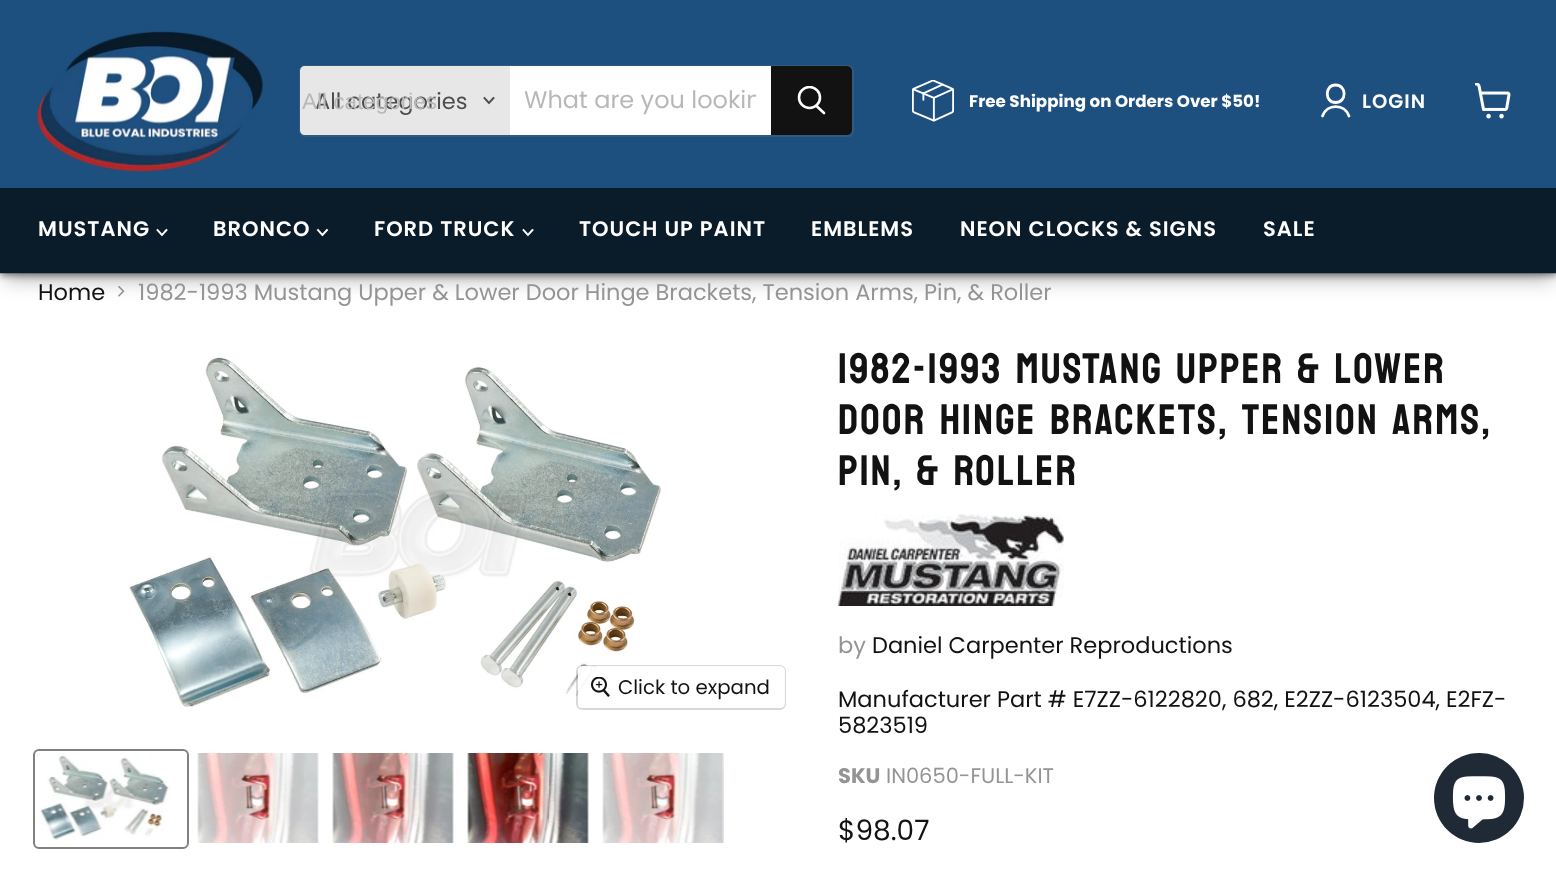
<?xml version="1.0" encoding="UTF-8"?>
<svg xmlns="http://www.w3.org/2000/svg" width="1556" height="874">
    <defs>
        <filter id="blur1" x="-50%" y="-200%" width="200%" height="500%"><feGaussianBlur stdDeviation="10"/></filter>
        <filter id="blur2" x="-50%" y="-200%" width="200%" height="500%"><feGaussianBlur stdDeviation="3"/></filter>
        <clipPath id="clip1"><rect x="525" y="81" width="231" height="38"/></clipPath>
        <clipPath id="clip2"><rect x="797" y="86" width="30" height="31"/></clipPath>
    </defs>
    <rect width="100%" height="100%" fill="#FFFFFF"/>
    <image x="118" y="286" width="7" height="11" href="img_04.png"/>
    <rect x="5" y="15" width="1548" height="264" fill="#000000" fill-opacity="0.3" filter="url(#blur1)"/>
    <rect x="0" y="3" width="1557" height="273" fill="#000000" fill-opacity="0.4" filter="url(#blur2)"/>
    <rect x="0" y="0" width="1556" height="188" fill="#1E507F"/>
    <rect x="0" y="273" width="1556" height="1" fill="#000000" fill-opacity="0.2"/>
    <image x="37" y="31" width="226" height="141" href="img_01.png"/>
    <rect x="300" y="66" width="553" height="70" rx="5" fill="none" stroke="#808080" stroke-opacity="0.2" stroke-width="2"/>
    <path d="M 305 66 H 510 V 135 H 305 C 302 135 300 133 300 130 V 71 C 300 68 302 66 305 66 Z" fill="#E7E7E7"/>
    <text x="315" y="109" font-family="Poppins" font-size="22.5" fill="#4D4D4D">All categories</text>
    <text x="302" y="109" font-family="Liberation Sans" font-size="22.5" fill="#B8B8B8">All categories</text>
    <path d="M 489 103 L 493.5 98 M 489 103 L 484.5 98" fill="none" stroke="#4D4D4D" stroke-width="1.9" stroke-linecap="square"/>
    <rect x="510" y="66" width="261" height="69" fill="#FFFFFF"/>
    <g clip-path="url(#clip1)">
        <text x="524" y="108" font-family="Poppins" font-size="24" fill="#B8B8B8">What are you lookin</text>
    </g>
    <path d="M 772 67 H 847 C 849 67 851 69 851 71 V 130 C 851 132 849 134 847 134 H 772 Z" fill="#121212" stroke="#121212" stroke-width="2"/>
    <path d="M 824 113 L 816.5 106" fill="none" stroke="#FFFFFF" stroke-width="2.6" stroke-linecap="round"/>
    <g clip-path="url(#clip2)">
        <circle cx="809.5" cy="97.5" r="10.5" fill="none" stroke="#FFFFFF" stroke-width="2.6"/>
    </g>
    <image x="912" y="80" width="42" height="42" href="img_02.png"/>
    <text x="969" y="107" font-family="Poppins" font-size="16.7" font-weight="700" fill="#FFFFFF">Free Shipping on Orders Over $50!</text>
    <path d="M 1335.5 102.5 C 1347 102.5 1347 85 1335.5 85 C 1324.5 85 1324.5 102.5 1335.5 102.5 Z M 1349 116 C 1344.5 103.5 1327 103.5 1322.5 116" fill="none" stroke="#FFFFFF" stroke-width="2.8" stroke-linecap="round" stroke-linejoin="round"/>
    <text x="1362" y="108" font-family="Poppins" font-size="19.5" font-weight="600" letter-spacing="1" fill="#FFFFFF">LOGIN</text>
    <image x="1475" y="83" width="36" height="36" href="img_03.png"/>
    <rect x="0" y="188" width="1556" height="85" fill="#0A1B2A"/>
    <text x="38" y="236" font-family="Poppins" font-size="21" font-weight="600" letter-spacing="1" fill="#FFFFFF">MUSTANG</text>
    <path d="M 162 235 L 166.5 230 M 162 235 L 157.5 230" fill="none" stroke="#FFFFFF" stroke-width="1.9" stroke-linecap="square"/>
    <text x="213" y="236" font-family="Poppins" font-size="21" font-weight="600" letter-spacing="1" fill="#FFFFFF">BRONCO</text>
    <path d="M 322.5 235 L 327 230 M 322.5 235 L 318 230" fill="none" stroke="#FFFFFF" stroke-width="1.9" stroke-linecap="square"/>
    <text x="374" y="236" font-family="Poppins" font-size="21" font-weight="600" letter-spacing="1" fill="#FFFFFF">FORD TRUCK</text>
    <path d="M 528 235 L 532.5 230 M 528 235 L 523.5 230" fill="none" stroke="#FFFFFF" stroke-width="1.9" stroke-linecap="square"/>
    <text x="579" y="236" font-family="Poppins" font-size="21" font-weight="600" letter-spacing="1" fill="#FFFFFF">TOUCH UP PAINT</text>
    <text x="811" y="236" font-family="Poppins" font-size="21" font-weight="600" letter-spacing="1" fill="#FFFFFF">EMBLEMS</text>
    <text x="960" y="236" font-family="Poppins" font-size="21" font-weight="600" letter-spacing="1" fill="#FFFFFF">NEON CLOCKS &amp; SIGNS</text>
    <text x="1263" y="236" font-family="Poppins" font-size="21" font-weight="600" letter-spacing="1" fill="#FFFFFF">SALE</text>
    <text x="38" y="300" font-family="Poppins" font-size="22.5" fill="#121212">Home</text>
    <text x="138" y="300" font-family="Poppins" font-size="22.5" fill="#949494">1982-1993 Mustang Upper &amp; Lower Door Hinge Brackets, Tension Arms, Pin, &amp; Roller</text>
    <image x="129" y="357" width="532" height="351" href="img_05.png"/>
    <rect x="577" y="666" width="208" height="43" rx="5" fill="none" stroke="#000000" stroke-opacity="0.15" stroke-width="2"/>
    <rect x="578" y="666" width="207" height="42" rx="5" fill="#FFFFFF" fill-opacity="0.9"/>
    <image x="591" y="677" width="19" height="20" href="img_06.png"/>
    <text x="618" y="694" font-family="Poppins" font-size="19.75" fill="#121212">Click to expand</text>
    <rect x="34" y="750" width="154" height="98" rx="5" fill="none" stroke="#818181" stroke-width="2"/>
    <image x="38" y="753" width="133" height="87" href="img_07.png"/>
    <image x="197" y="753" width="122" height="90" href="img_08.png"/>
    <image x="332" y="753" width="122" height="90" href="img_09.png"/>
    <image x="467" y="753" width="122" height="90" href="img_10.png"/>
    <image x="602" y="753" width="122" height="90" href="img_11.png"/>
    <text font-family="Bayon" font-size="42.75" letter-spacing="2.15" fill="#121212">
        <tspan x="838" y="383">1982-1993 MUSTANG UPPER &amp; LOWER</tspan>
        <tspan x="838" y="434">DOOR HINGE BRACKETS, TENSION ARMS,</tspan>
        <tspan x="838" y="485">PIN, &amp; ROLLER</tspan>
    </text>
    <image x="838" y="514" width="226" height="92" href="img_12.png"/>
    <text x="838" y="653" font-family="Poppins" font-size="22.5" fill="#949494">by</text>
    <text x="872" y="653" font-family="Poppins" font-size="22.5" fill="#121212">Daniel Carpenter Reproductions</text>
    <text font-family="Poppins" font-size="22.5" fill="#121212">
        <tspan x="838" y="707">Manufacturer Part # E7ZZ-6122820, 682, E2ZZ-6123504, E2FZ-</tspan>
        <tspan x="838" y="733">5823519</tspan>
    </text>
    <text x="838" y="783" font-family="Poppins" font-size="21" font-weight="700" fill="#949494">SKU</text>
    <text x="886" y="783" font-family="Poppins" font-size="21" fill="#949494">IN0650-FULL-KIT</text>
    <text x="838" y="840" font-family="Poppins" font-size="28" fill="#121212">$98.07</text>
    <circle cx="1479" cy="798" r="45" fill="#202A36"/>
    <image x="1452" y="776" width="54" height="53" href="img_13.png"/>
</svg>
